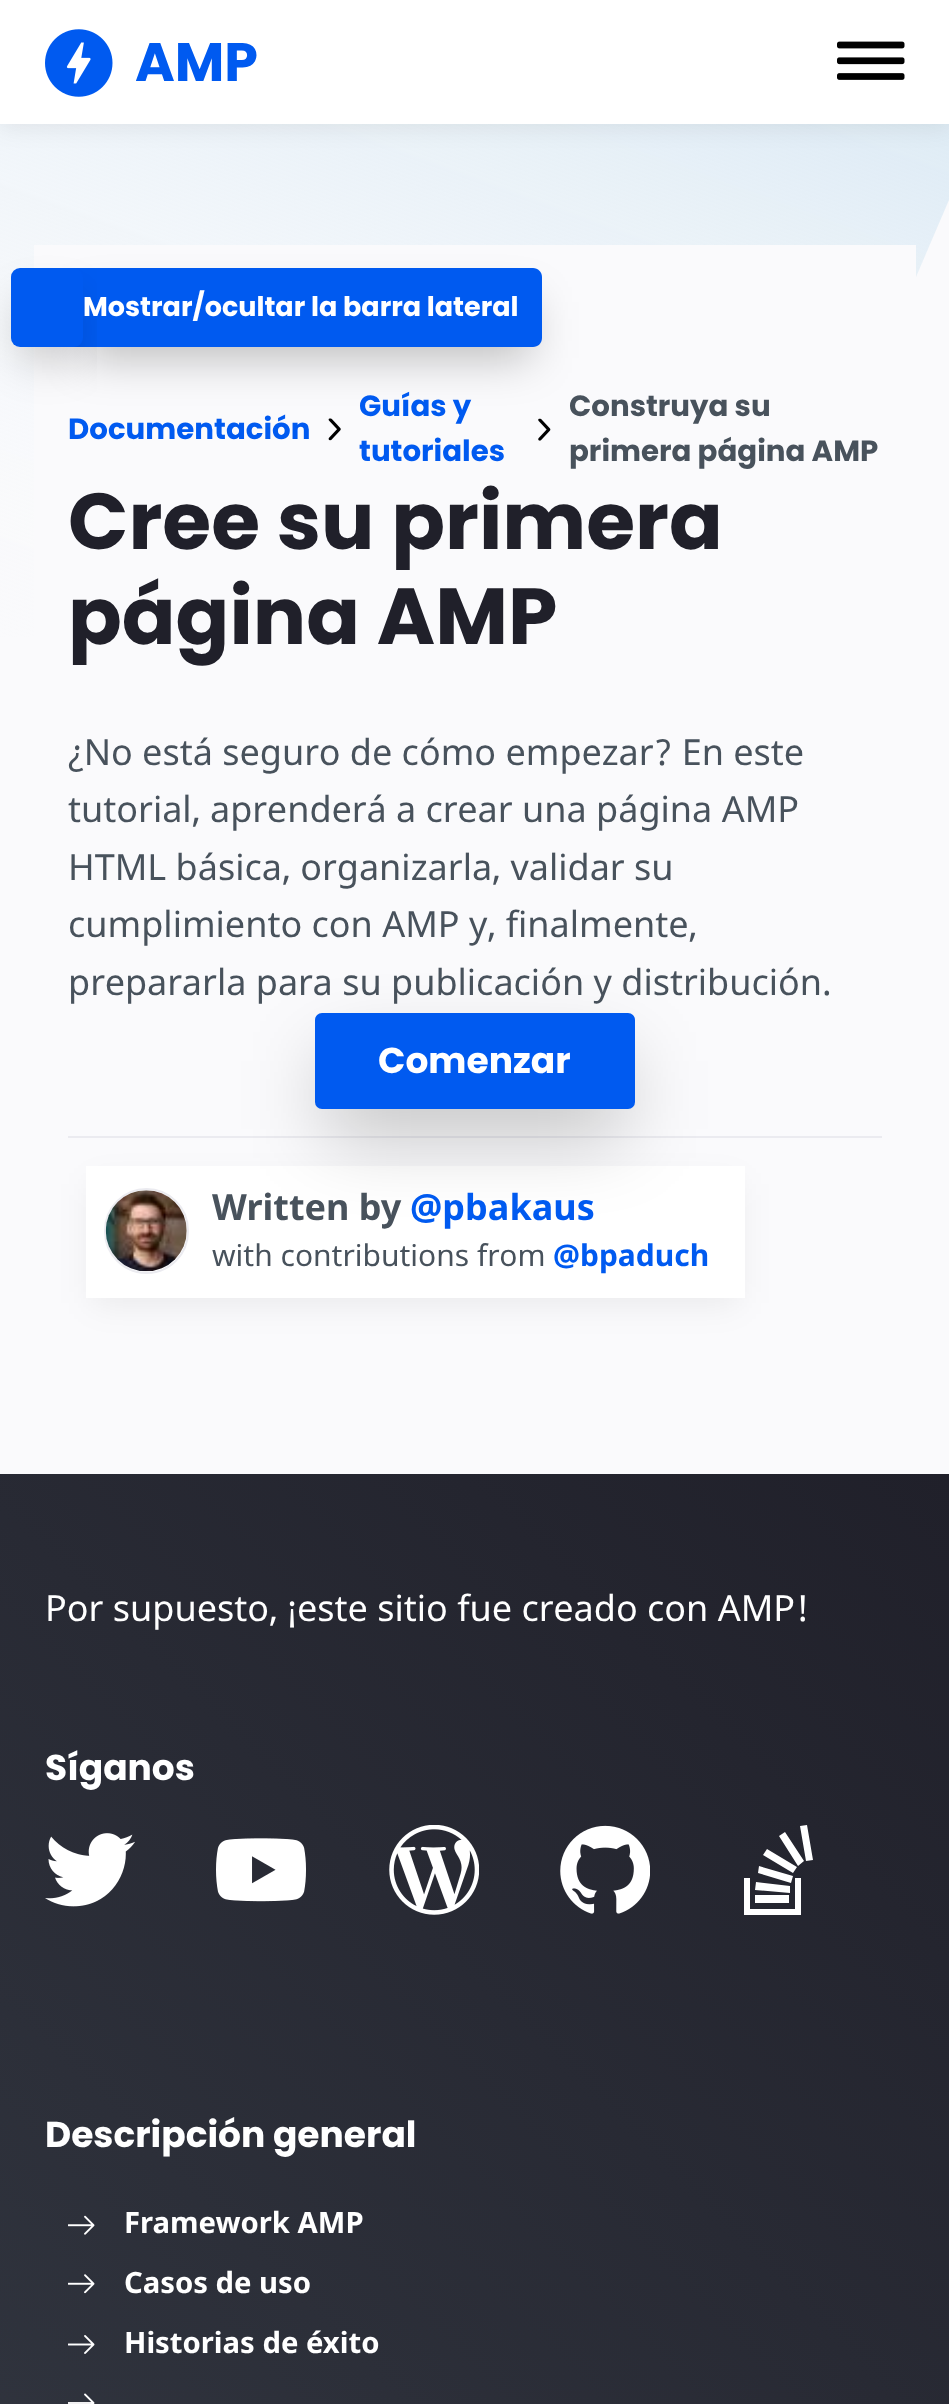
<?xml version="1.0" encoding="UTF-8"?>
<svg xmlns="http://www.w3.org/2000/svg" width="949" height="2404">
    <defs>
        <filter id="blur1" x="-50%" y="-200%" width="200%" height="500%"><feGaussianBlur stdDeviation="11"/></filter>
        <filter id="blur2" x="-50%" y="-200%" width="200%" height="500%"><feGaussianBlur stdDeviation="22.5"/></filter>
        <filter id="blur3" x="-50%" y="-200%" width="200%" height="500%"><feGaussianBlur stdDeviation="17"/></filter>
        <filter id="blur4" x="-50%" y="-200%" width="200%" height="500%"><feGaussianBlur stdDeviation="39.5"/></filter>
        <linearGradient id="g1" gradientUnits="userSpaceOnUse" x1="-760" y1="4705" x2="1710" y2="2234"><stop offset="0" stop-color="#48525C"/><stop offset="1" stop-color="#20202A"/></linearGradient>
    </defs>
    <rect width="100%" height="100%" fill="#FAFAFC"/>
    <image x="0" y="124" width="949" height="513" href="img_01.png"/>
    <rect x="0" y="5" width="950" height="123" fill="#000000" fill-opacity="0.07" filter="url(#blur1)"/>
    <rect x="0" y="0" width="949" height="124" fill="#FFFFFF"/>
    <image x="45" y="29" width="68" height="68" href="img_02.png"/>
    <text x="135" y="81" font-family="Poppins" font-size="54" font-weight="700" fill="#005AF0">AMP</text>
    <image x="837" y="41" width="68" height="39" href="img_03.png"/>
    <rect x="34" y="245" width="882" height="392" fill="#FAFAFC"/>
    <image x="328" y="418" width="13" height="23" href="img_04.png"/>
    <image x="538" y="418" width="13" height="23" href="img_05.png"/>
    <rect x="83" y="302" width="448" height="56" fill="#000000" fill-opacity="0.25" filter="url(#blur2)"/>
    <path d="M 72 268 H 533 C 538 268 542 272 542 277 V 338 C 542 343 538 347 533 347 H 72 Z" fill="#005AF0"/>
    <rect x="23" y="302" width="49" height="56" fill="#000000" fill-opacity="0.25" filter="url(#blur2)"/>
    <rect x="11" y="268" width="72" height="79" rx="9" fill="#005AF0"/>
    <text x="83" y="316" font-family="Poppins" font-size="27" font-weight="700" fill="#FFFFFF">Mostrar/ocultar la barra lateral</text>
    <text x="68" y="439" font-family="Poppins" font-size="29.25" font-weight="700" fill="#005AF0">Documentación</text>
    <text font-family="Poppins" font-size="29.25" font-weight="700" fill="#005AF0">
        <tspan x="359" y="416">Guías y</tspan>
        <tspan x="359" y="461">tutoriales</tspan>
    </text>
    <text font-family="Poppins" font-size="29.25" font-weight="700" fill="#48525C">
        <tspan x="569" y="416">Construya su</tspan>
        <tspan x="569" y="461">primera página AMP</tspan>
    </text>
    <text font-family="Poppins" font-size="79.25" font-weight="700" fill="#20202A">
        <tspan x="68" y="549">Cree su primera</tspan>
        <tspan x="68" y="644">página AMP</tspan>
    </text>
    <text font-family="Noto Sans" font-size="36" fill="#48525C">
        <tspan x="68" y="765">¿No está seguro de cómo empezar? En este</tspan>
        <tspan x="68" y="822">tutorial, aprenderá a crear una página AMP</tspan>
        <tspan x="68" y="880">HTML básica, organizarla, validar su</tspan>
        <tspan x="68" y="937">cumplimiento con AMP y, finalmente,</tspan>
        <tspan x="68" y="995">prepararla para su publicación y distribución.</tspan>
    </text>
    <rect x="68" y="1136" width="814" height="2" fill="#EBEBF0"/>
    <rect x="92" y="1184" width="646" height="119" fill="#000000" fill-opacity="0.07" filter="url(#blur3)"/>
    <rect x="86" y="1166" width="659" height="132" fill="#FFFFFF"/>
    <rect x="326" y="1058" width="297" height="74" fill="#000000" fill-opacity="0.25" filter="url(#blur4)"/>
    <rect x="315" y="1013" width="320" height="96" rx="7" fill="#005AF0"/>
    <text x="378" y="1073" font-family="Poppins" font-size="36" font-weight="700" fill="#FFFFFF">Comenzar</text>
    <rect x="105" y="1189" width="83" height="84" rx="41.5" fill="none" stroke="#EBEBF0" stroke-width="2"/>
    <image x="105" y="1190" width="82" height="82" href="img_06.png"/>
    <text x="212" y="1220" font-family="Noto Sans" font-size="36" font-weight="700" fill="#48525C">Written by</text>
    <text x="410" y="1220" font-family="Noto Sans" font-size="36" font-weight="700" fill="#005AF0">@pbakaus</text>
    <text x="212" y="1266" font-family="Noto Sans" font-size="30" fill="#48525C">with contributions from</text>
    <text x="553" y="1266" font-family="Noto Sans" font-size="30" font-weight="700" fill="#005AF0">@bpaduch</text>
    <rect x="0" y="1474" width="949" height="930" fill="url(#g1)"/>
    <text x="45" y="1621" font-family="Noto Sans" font-size="36" fill="#FFFFFF">Por supuesto, ¡este sitio fue creado con AMP!</text>
    <text x="45" y="1780" font-family="Poppins" font-size="36" font-weight="700" fill="#FFFFFF">Síganos</text>
    <image x="45" y="1833" width="90" height="74" href="img_07.png"/>
    <image x="216" y="1838" width="90" height="64" href="img_08.png"/>
    <image x="389" y="1825" width="90" height="90" href="img_09.png"/>
    <image x="560" y="1825" width="90" height="89" href="img_10.png"/>
    <path d="M 795 1878 H 801 V 1915 H 744 V 1878 H 750 V 1909 H 795 Z M 779 1836 L 798 1866 L 804 1861 L 785 1832 Z M 797 1867 L 767 1849 L 763 1855 L 793 1873 Z M 807 1825 L 800 1826 L 806 1861 L 813 1860 Z M 793 1876 L 759 1866 L 758 1873 L 791 1883 Z M 789 1895 H 755 V 1903 H 789 Z M 790 1886 L 756 1882 L 755 1890 L 790 1893 Z" fill="#FFFFFF"/>
    <text x="45" y="2147" font-family="Poppins" font-size="36" font-weight="700" fill="#FFFFFF">Descripción general</text>
    <image x="68" y="2215" width="27" height="20" href="img_11.png"/>
    <text x="124" y="2233" font-family="Noto Sans" font-size="29.25" font-weight="700" fill="#FFFFFF">Framework AMP</text>
    <image x="68" y="2274" width="27" height="20" href="img_12.png"/>
    <text x="124" y="2293" font-family="Noto Sans" font-size="29.25" font-weight="700" fill="#FFFFFF">Casos de uso</text>
    <image x="68" y="2335" width="27" height="19" href="img_13.png"/>
    <text x="124" y="2353" font-family="Noto Sans" font-size="29.25" font-weight="700" fill="#FFFFFF">Historias de éxito</text>
    <image x="68" y="2393" width="27" height="11" href="img_14.png"/>
</svg>
